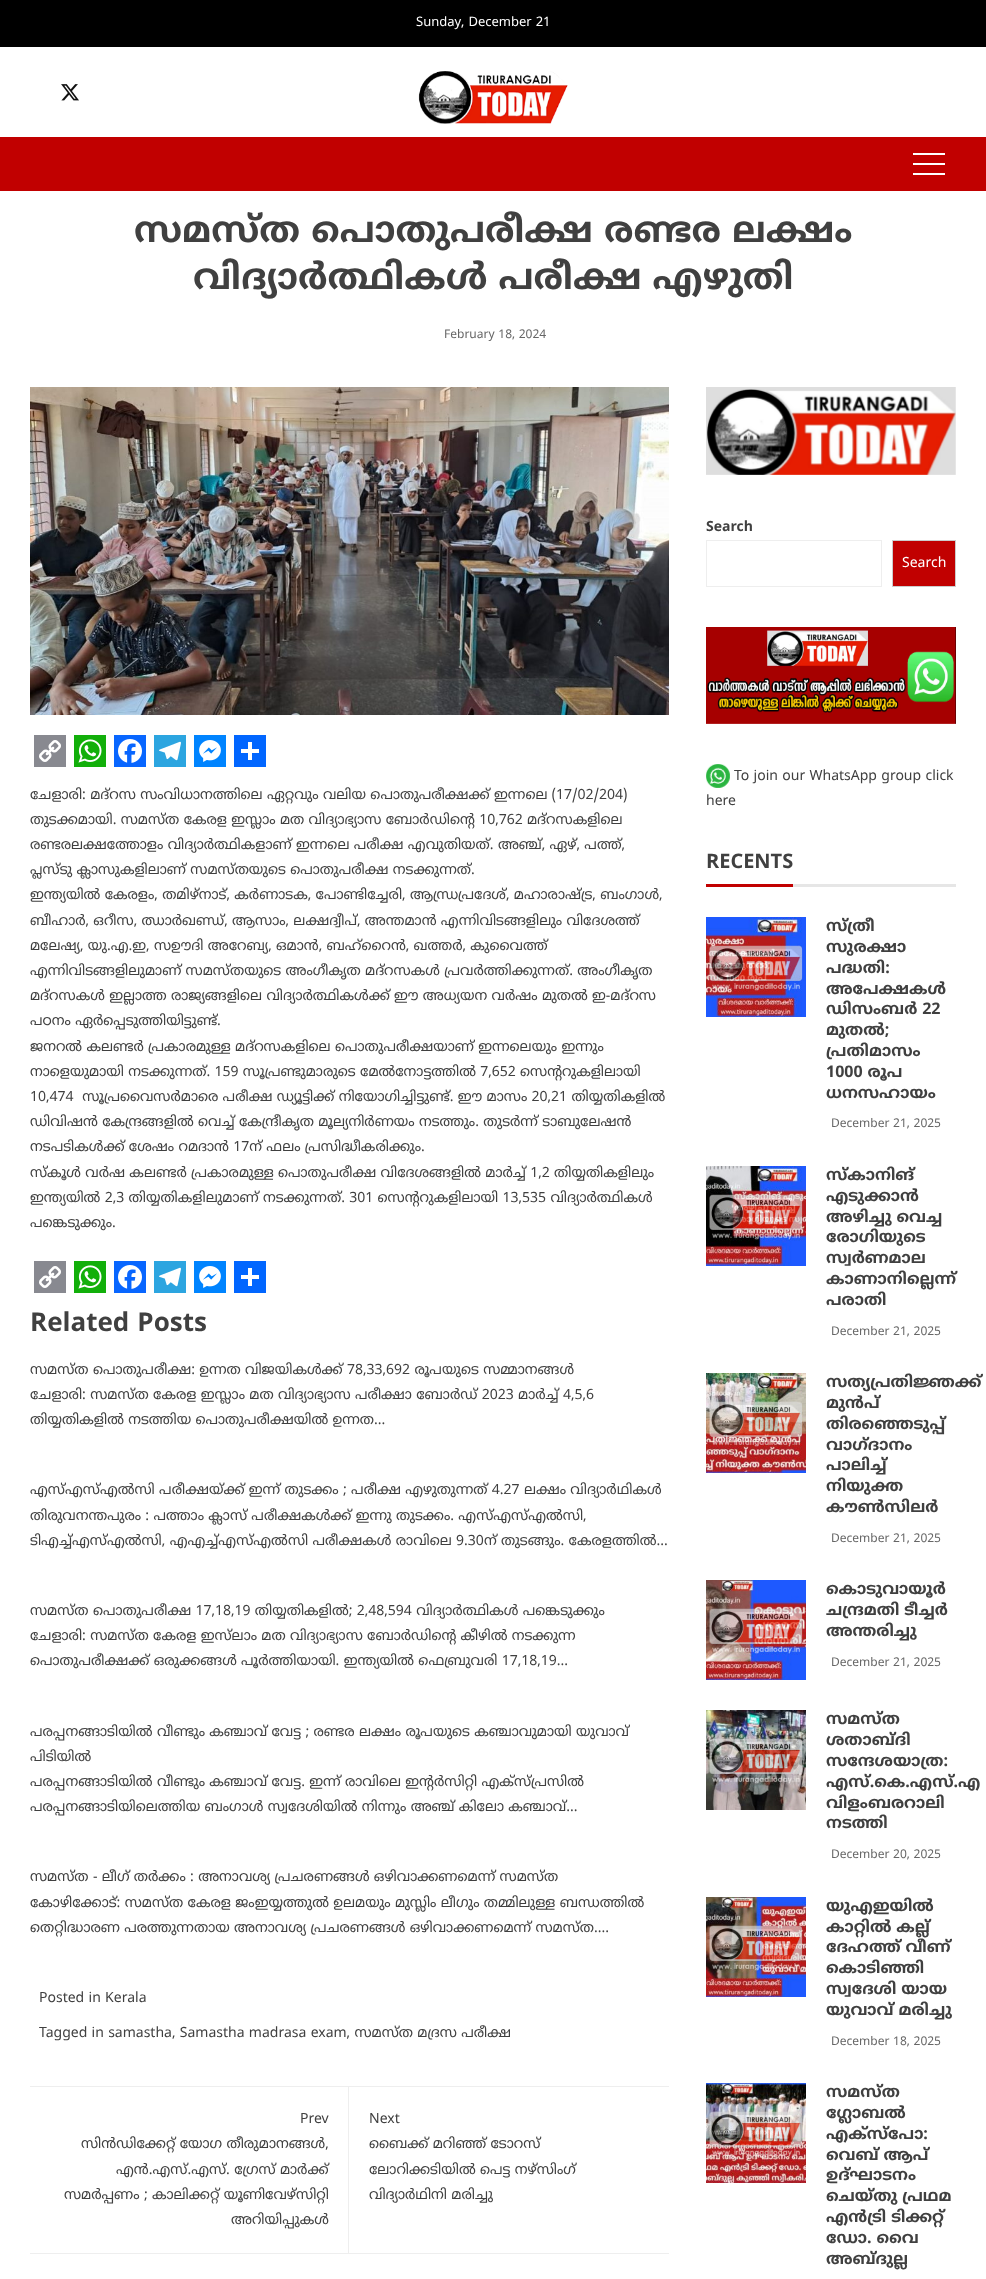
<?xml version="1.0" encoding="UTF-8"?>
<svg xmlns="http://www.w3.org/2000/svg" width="986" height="2279">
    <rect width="100%" height="100%" fill="#FFFFFF"/>
    <rect x="0" y="0" width="986" height="47" fill="#000000"/>
    <text x="416" y="26" font-family="Noto Sans Malayalam" font-size="13" fill="#FFFFFF">Sunday, December 21</text>
    <image x="61" y="84" width="18" height="17" href="img_01.png"/>
    <image x="418" y="71" width="150" height="53" href="img_02.png"/>
    <rect x="0" y="137" width="986" height="54" fill="#C10000"/>
    <rect x="913" y="153" width="32" height="2" fill="#FFFFFF"/>
    <rect x="913" y="173" width="32" height="2" fill="#FFFFFF"/>
    <rect x="913" y="163" width="32" height="2" fill="#FFFFFF"/>
    <text x="134" y="242" font-family="Noto Sans Malayalam" font-size="36" font-weight="700" fill="#404040">സമസ്ത പൊതുപരീക്ഷ രണ്ടര ലക്ഷം</text>
    <text x="193" y="289" font-family="Noto Sans Malayalam" font-size="36" font-weight="700" fill="#404040">വിദ്യാര്‍ത്ഥികള്‍ പരീക്ഷ എഴുതി</text>
    <text x="444" y="338" font-family="Noto Sans Malayalam" font-size="12" fill="#666666">February 18, 2024</text>
    <image x="30" y="387" width="639" height="328" href="img_03.png"/>
    <rect x="34" y="735" width="32" height="32" fill="#888990"/>
    <image x="39" y="740" width="22" height="22" href="img_04.png"/>
    <rect x="74" y="735" width="32" height="32" fill="#12AF0A"/>
    <image x="78" y="739" width="24" height="24" href="img_05.png"/>
    <rect x="114" y="735" width="32" height="32" fill="#0866FF"/>
    <image x="118" y="739" width="24" height="24" href="img_06.png"/>
    <rect x="154" y="735" width="32" height="32" fill="#2CA5E0"/>
    <image x="159" y="741" width="22" height="20" href="img_07.png"/>
    <rect x="194" y="735" width="32" height="32" fill="#0084FF"/>
    <image x="199" y="740" width="22" height="22" href="img_08.png"/>
    <rect x="234" y="735" width="32" height="32" fill="#0166FF"/>
    <rect x="248" y="742" width="4" height="18" fill="#FFFFFF"/>
    <rect x="241" y="749" width="18" height="4" fill="#FFFFFF"/>
    <text font-family="Noto Sans Malayalam" font-size="14" fill="#404040" xml:space="preserve"><tspan x="30" y="799">ചേളാരി: മദ്റസ സംവിധാനത്തിലെ ഏറ്റവും വലിയ പൊതുപരീക്ഷക്ക് ഇന്നലെ (17/02/204)</tspan><tspan x="30" y="824">തുടക്കമായി. സമസ്ത കേരള ഇസ്ലാം മത വിദ്യാഭ്യാസ ബോര്‍ഡിന്റെ 10,762 മദ്റസകളിലെ</tspan><tspan x="30" y="849">രണ്ടരലക്ഷത്തോളം വിദ്യാര്‍ത്ഥികളാണ് ഇന്നലെ പരീക്ഷ എവുതിയത്. അഞ്ച്, ഏഴ്, പത്ത്,</tspan><tspan x="30" y="874">പ്ലസ്ടു ക്ലാസുകളിലാണ് സമസ്തയുടെ പൊതുപരീക്ഷ നടക്കുന്നത്.</tspan><tspan x="30" y="899">ഇന്ത്യയില്‍ കേരളം, തമിഴ്നാട്, കര്‍ണാടക, പോണ്ടിച്ചേരി, ആന്ധ്രപ്രദേശ്, മഹാരാഷ്ട്ര, ബംഗാള്‍,</tspan><tspan x="30" y="925">ബീഹാര്‍, ഒറീസ, ഝാര്‍ഖണ്ഡ്, ആസാം, ലക്ഷദ്വീപ്, അന്തമാന്‍ എന്നിവിടങ്ങളിലും വിദേശത്ത്</tspan><tspan x="30" y="950">മലേഷ്യ, യു.എ.ഇ, സഊദി അറേബ്യ, ഒമാന്‍, ബഹ്റൈന്‍, ഖത്തര്‍, കുവൈത്ത്</tspan><tspan x="30" y="975">എന്നിവിടങ്ങളിലുമാണ് സമസ്തയുടെ അംഗീകൃത മദ്റസകള്‍ പ്രവര്‍ത്തിക്കുന്നത്. അംഗീകൃത</tspan><tspan x="30" y="1000">മദ്റസകള്‍ ഇല്ലാത്ത രാജ്യങ്ങളിലെ വിദ്യാര്‍ത്ഥികള്‍ക്ക് ഈ അധ്യയന വര്‍ഷം മുതല്‍ ഇ-മദ്റസ</tspan><tspan x="30" y="1025">പഠനം ഏര്‍പ്പെടുത്തിയിട്ടുണ്ട്.</tspan><tspan x="30" y="1051">ജനറല്‍ കലണ്ടര്‍ പ്രകാരമുള്ള മദ്റസകളിലെ പൊതുപരീക്ഷയാണ് ഇന്നലെയും ഇന്നും</tspan><tspan x="30" y="1076">നാളെയുമായി നടക്കുന്നത്. 159 സൂപ്രണ്ടുമാരുടെ മേല്‍നോട്ടത്തില്‍ 7,652 സെന്ററുകളിലായി</tspan><tspan x="30" y="1101">10,474  സൂപ്രവൈസര്‍മാരെ പരീക്ഷ ഡ്യൂട്ടിക്ക് നിയോഗിച്ചിട്ടുണ്ട്. ഈ മാസം 20,21 തിയ്യതികളില്‍</tspan><tspan x="30" y="1126">ഡിവിഷന്‍ കേന്ദ്രങ്ങളില്‍ വെച്ച് കേന്ദ്രീകൃത മൂല്യനിര്‍ണയം നടത്തും. തുടര്‍ന്ന് ടാബുലേഷന്‍</tspan><tspan x="30" y="1151">നടപടികള്‍ക്ക് ശേഷം റമദാന്‍ 17ന് ഫലം പ്രസിദ്ധീകരിക്കും.</tspan><tspan x="30" y="1177">സ്കൂള്‍ വര്‍ഷ കലണ്ടര്‍ പ്രകാരമുള്ള പൊതുപരീക്ഷ വിദേശങ്ങളില്‍ മാര്‍ച്ച് 1,2 തിയ്യതികളിലും</tspan><tspan x="30" y="1202">ഇന്ത്യയില്‍ 2,3 തിയ്യതികളിലുമാണ് നടക്കുന്നത്. 301 സെന്ററുകളിലായി 13,535 വിദ്യാര്‍ത്ഥികള്‍</tspan><tspan x="30" y="1227">പങ്കെടുക്കും.</tspan></text>
    <rect x="34" y="1261" width="32" height="32" fill="#888990"/>
    <image x="39" y="1266" width="22" height="22" href="img_04.png"/>
    <rect x="74" y="1261" width="32" height="32" fill="#12AF0A"/>
    <image x="78" y="1265" width="24" height="24" href="img_05.png"/>
    <rect x="114" y="1261" width="32" height="32" fill="#0866FF"/>
    <image x="118" y="1265" width="24" height="24" href="img_06.png"/>
    <rect x="154" y="1261" width="32" height="32" fill="#2CA5E0"/>
    <image x="159" y="1267" width="22" height="20" href="img_07.png"/>
    <rect x="194" y="1261" width="32" height="32" fill="#0084FF"/>
    <image x="199" y="1266" width="22" height="22" href="img_08.png"/>
    <rect x="234" y="1261" width="32" height="32" fill="#0166FF"/>
    <rect x="248" y="1268" width="4" height="18" fill="#FFFFFF"/>
    <rect x="241" y="1275" width="18" height="4" fill="#FFFFFF"/>
    <text x="30" y="1331" font-family="Noto Sans Malayalam" font-size="26" font-weight="700" fill="#404040">Related Posts</text>
    <text font-family="Noto Sans Malayalam" font-size="14" fill="#404040">
        <tspan x="30" y="1374">സമസ്ത പൊതുപരീക്ഷ: ഉന്നത വിജയികള്‍ക്ക് 78,33,692 രൂപയുടെ സമ്മാനങ്ങള്‍</tspan>
        <tspan x="30" y="1399">ചേളാരി: സമസ്ത കേരള ഇസ്ലാം മത വിദ്യാഭ്യാസ പരീക്ഷാ ബോര്‍ഡ് 2023 മാര്‍ച്ച് 4,5,6</tspan>
        <tspan x="30" y="1424">തിയ്യതികളില്‍ നടത്തിയ പൊതുപരീക്ഷയില്‍ ഉന്നത…</tspan>
    </text>
    <text font-family="Noto Sans Malayalam" font-size="14" fill="#404040">
        <tspan x="30" y="1494">എസ്എസ്എല്‍സി പരീക്ഷയ്ക്ക് ഇന്ന് തുടക്കം ; പരീക്ഷ എഴുതുന്നത് 4.27 ലക്ഷം വിദ്യാര്‍ഥികള്‍</tspan>
        <tspan x="30" y="1520">തിരുവനന്തപുരം : പത്താം ക്ലാസ് പരീക്ഷകള്‍ക്ക് ഇന്നു തുടക്കം. എസ്എസ്എല്‍സി,</tspan>
        <tspan x="30" y="1545">ടിഎച്ച്എസ്എല്‍സി, എഎച്ച്എസ്എല്‍സി പരീക്ഷകള്‍ രാവിലെ 9.30ന് തുടങ്ങും. കേരളത്തില്‍…</tspan>
    </text>
    <text font-family="Noto Sans Malayalam" font-size="14" fill="#404040">
        <tspan x="30" y="1615">സമസ്ത പൊതുപരീക്ഷ 17,18,19 തിയ്യതികളില്‍; 2,48,594 വിദ്യാര്‍ത്ഥികള്‍ പങ്കെടുക്കും</tspan>
        <tspan x="30" y="1640">ചേളാരി: സമസ്ത കേരള ഇസ്‌ലാം മത വിദ്യാഭ്യാസ ബോര്‍ഡിന്റെ കീഴില്‍ നടക്കുന്ന</tspan>
        <tspan x="30" y="1665">പൊതുപരീക്ഷക്ക് ഒരുക്കങ്ങള്‍ പൂര്‍ത്തിയായി. ഇന്ത്യയില്‍ ഫെബ്രുവരി 17,18,19…</tspan>
    </text>
    <text font-family="Noto Sans Malayalam" font-size="14" fill="#404040">
        <tspan x="30" y="1736">പരപ്പനങ്ങാടിയില്‍ വീണ്ടും കഞ്ചാവ് വേട്ട ; രണ്ടര ലക്ഷം രൂപയുടെ കഞ്ചാവുമായി യുവാവ്</tspan>
        <tspan x="30" y="1761">പിടിയില്‍</tspan>
        <tspan x="30" y="1786">പരപ്പനങ്ങാടിയില്‍ വീണ്ടും കഞ്ചാവ് വേട്ട. ഇന്ന് രാവിലെ ഇന്റര്‍സിറ്റി എക്സ്പ്രസില്‍</tspan>
        <tspan x="30" y="1811">പരപ്പനങ്ങാടിയിലെത്തിയ ബംഗാള്‍ സ്വദേശിയില്‍ നിന്നും അഞ്ച് കിലോ കഞ്ചാവ്…</tspan>
    </text>
    <text font-family="Noto Sans Malayalam" font-size="14" fill="#404040">
        <tspan x="30" y="1881">സമസ്ത - ലീഗ് തര്‍ക്കം : അനാവശ്യ പ്രചരണങ്ങള്‍ ഒഴിവാക്കണമെന്ന് സമസ്ത</tspan>
        <tspan x="30" y="1907">കോഴിക്കോട്: സമസ്ത കേരള ജംഇയ്യത്തുല്‍ ഉലമയും മുസ്ലിം ലീഗും തമ്മിലുള്ള ബന്ധത്തില്‍</tspan>
        <tspan x="30" y="1932">തെറ്റിദ്ധാരണ പരത്തുന്നതായ അനാവശ്യ പ്രചരണങ്ങള്‍ ഒഴിവാക്കണമെന്ന് സമസ്ത.…</tspan>
    </text>
    <text x="39" y="2002" font-family="Noto Sans Malayalam" font-size="14" fill="#404040">Posted in Kerala</text>
    <text x="39" y="2037" font-family="Noto Sans Malayalam" font-size="14" fill="#404040">Tagged in samastha, Samastha madrasa exam, സമസ്ത മദ്രസ പരീക്ഷ</text>
    <rect x="30" y="2086" width="639" height="1" fill="#EEEEEE"/>
    <rect x="30" y="2253" width="639" height="1" fill="#EEEEEE"/>
    <rect x="348" y="2087" width="1" height="166" fill="#EEEEEE"/>
    <text x="300" y="2123" font-family="Noto Sans Malayalam" font-size="14" fill="#404040">Prev</text>
    <text x="81" y="2148" font-family="Noto Sans Malayalam" font-size="14" fill="#404040">സിന്‍ഡിക്കേറ്റ് യോഗ തീരുമാനങ്ങള്‍,</text>
    <text x="116" y="2174" font-family="Noto Sans Malayalam" font-size="14" fill="#404040">എൻ.എസ്.എസ്. ഗ്രേസ് മാർക്ക്</text>
    <text x="64" y="2199" font-family="Noto Sans Malayalam" font-size="14" fill="#404040">സമർപ്പണം ; കാലിക്കറ്റ് യൂണിവേഴ്‌സിറ്റി</text>
    <text x="231" y="2224" font-family="Noto Sans Malayalam" font-size="14" fill="#404040">അറിയിപ്പുകള്‍</text>
    <text font-family="Noto Sans Malayalam" font-size="14" fill="#404040">
        <tspan x="369" y="2123">Next</tspan>
        <tspan x="369" y="2148">ബൈക്ക് മറിഞ്ഞ് ടോറസ്</tspan>
        <tspan x="369" y="2174">ലോറിക്കടിയിൽ പെട്ട നഴ്സിംഗ്</tspan>
        <tspan x="369" y="2199">വിദ്യാർഥിനി മരിച്ചു</tspan>
    </text>
    <image x="706" y="387" width="250" height="88" href="img_09.png"/>
    <text x="706" y="531" font-family="Noto Sans Malayalam" font-size="14" font-weight="700" fill="#404040">Search</text>
    <rect x="706.5" y="540.5" width="175" height="46" fill="none" stroke="#EEEEEE"/>
    <rect x="892.5" y="540.5" width="63" height="46" fill="#C10000" stroke="#CCCCCC"/>
    <text x="902" y="567" font-family="Noto Sans Malayalam" font-size="14" fill="#FFFFFF">Search</text>
    <image x="706" y="627" width="250" height="97" href="img_10.png"/>
    <image x="706" y="764" width="24" height="24" href="img_11.png"/>
    <text x="734" y="780" font-family="Noto Sans Malayalam" font-size="14" fill="#404040">To join our WhatsApp group click</text>
    <text x="706" y="805" font-family="Noto Sans Malayalam" font-size="14" fill="#404040">here</text>
    <rect x="793" y="884" width="163" height="3" fill="#E6E6E6"/>
    <text x="706" y="868" font-family="Noto Sans Malayalam" font-size="20" font-weight="700" fill="#404040">RECENTS</text>
    <rect x="706" y="884" width="87" height="3" fill="#C10000"/>
    <image x="706" y="917" width="100" height="100" href="img_12.png"/>
    <text font-family="Noto Sans Malayalam" font-size="16" font-weight="700" fill="#404040">
        <tspan x="826" y="931">സ്ത്രീ</tspan>
        <tspan x="826" y="952">സുരക്ഷാ</tspan>
        <tspan x="826" y="973">പദ്ധതി:</tspan>
        <tspan x="826" y="994">അപേക്ഷകൾ</tspan>
        <tspan x="826" y="1014">ഡിസംബർ 22</tspan>
        <tspan x="826" y="1035">മുതൽ;</tspan>
        <tspan x="826" y="1056">പ്രതിമാസം</tspan>
        <tspan x="826" y="1077">1000 രൂപ</tspan>
        <tspan x="826" y="1098">ധനസഹായം</tspan>
    </text>
    <text x="831" y="1127" font-family="Noto Sans Malayalam" font-size="12" fill="#666666">December 21, 2025</text>
    <image x="706" y="1166" width="100" height="100" href="img_13.png"/>
    <text font-family="Noto Sans Malayalam" font-size="16" font-weight="700" fill="#404040">
        <tspan x="826" y="1180">സ്കാനിങ്</tspan>
        <tspan x="826" y="1201">എടുക്കാൻ</tspan>
        <tspan x="826" y="1222">അഴിച്ചു വെച്ച</tspan>
        <tspan x="826" y="1242">രോഗിയുടെ</tspan>
        <tspan x="826" y="1263">സ്വർണമാല</tspan>
        <tspan x="826" y="1284">കാണാനില്ലെന്ന്</tspan>
        <tspan x="826" y="1305">പരാതി</tspan>
    </text>
    <text x="831" y="1335" font-family="Noto Sans Malayalam" font-size="12" fill="#666666">December 21, 2025</text>
    <image x="706" y="1373" width="100" height="100" href="img_14.png"/>
    <text font-family="Noto Sans Malayalam" font-size="16" font-weight="700" fill="#404040">
        <tspan x="826" y="1387">സത്യപ്രതിജ്ഞക്ക്</tspan>
        <tspan x="826" y="1408">മുൻപ്</tspan>
        <tspan x="826" y="1429">തിരഞ്ഞെടുപ്പ്</tspan>
        <tspan x="826" y="1450">വാഗ്ദാനം</tspan>
        <tspan x="826" y="1470">പാലിച്ച്</tspan>
        <tspan x="826" y="1491">നിയുക്ത</tspan>
        <tspan x="826" y="1512">കൗൺസിലർ</tspan>
    </text>
    <text x="831" y="1542" font-family="Noto Sans Malayalam" font-size="12" fill="#666666">December 21, 2025</text>
    <image x="706" y="1580" width="100" height="100" href="img_15.png"/>
    <text font-family="Noto Sans Malayalam" font-size="16" font-weight="700" fill="#404040">
        <tspan x="826" y="1594">കൊടുവായൂർ</tspan>
        <tspan x="826" y="1615">ചന്ദ്രമതി ടീച്ചർ</tspan>
        <tspan x="826" y="1636">അന്തരിച്ചു</tspan>
    </text>
    <text x="831" y="1666" font-family="Noto Sans Malayalam" font-size="12" fill="#666666">December 21, 2025</text>
    <image x="706" y="1710" width="100" height="100" href="img_16.png"/>
    <text font-family="Noto Sans Malayalam" font-size="16" font-weight="700" fill="#404040">
        <tspan x="826" y="1724">സമസ്ത</tspan>
        <tspan x="826" y="1745">ശതാബ്ദി</tspan>
        <tspan x="826" y="1766">സന്ദേശയാത്ര:</tspan>
        <tspan x="826" y="1787">എസ്.കെ.എസ്.എ</tspan>
        <tspan x="826" y="1808">വിളംബരറാലി</tspan>
        <tspan x="826" y="1828">നടത്തി</tspan>
    </text>
    <text x="831" y="1858" font-family="Noto Sans Malayalam" font-size="12" fill="#666666">December 20, 2025</text>
    <image x="706" y="1897" width="100" height="100" href="img_17.png"/>
    <text font-family="Noto Sans Malayalam" font-size="16" font-weight="700" fill="#404040">
        <tspan x="826" y="1911">യുഎഇയിൽ</tspan>
        <tspan x="826" y="1932">കാറ്റിൽ കല്ല്</tspan>
        <tspan x="826" y="1952">ദേഹത്ത് വീണ്</tspan>
        <tspan x="826" y="1973">കൊടിഞ്ഞി</tspan>
        <tspan x="826" y="1994">സ്വദേശി യായ</tspan>
        <tspan x="826" y="2015">യുവാവ് മരിച്ചു</tspan>
    </text>
    <text x="831" y="2045" font-family="Noto Sans Malayalam" font-size="12" fill="#666666">December 18, 2025</text>
    <image x="706" y="2083" width="100" height="100" href="img_18.png"/>
    <text font-family="Noto Sans Malayalam" font-size="16" font-weight="700" fill="#404040">
        <tspan x="826" y="2097">സമസ്ത</tspan>
        <tspan x="826" y="2118">ഗ്ലോബല്‍</tspan>
        <tspan x="826" y="2139">എക്‌സ്‌പോ:</tspan>
        <tspan x="826" y="2160">വെബ് ആപ്</tspan>
        <tspan x="826" y="2180">ഉദ്ഘാടനം</tspan>
        <tspan x="826" y="2201">ചെയ്തു പ്രഥമ</tspan>
        <tspan x="826" y="2222">എന്‍ട്രി ടിക്കറ്റ്</tspan>
        <tspan x="826" y="2243">ഡോ. വൈ</tspan>
        <tspan x="826" y="2264">അബ്ദുല്ല</tspan>
    </text>
</svg>
